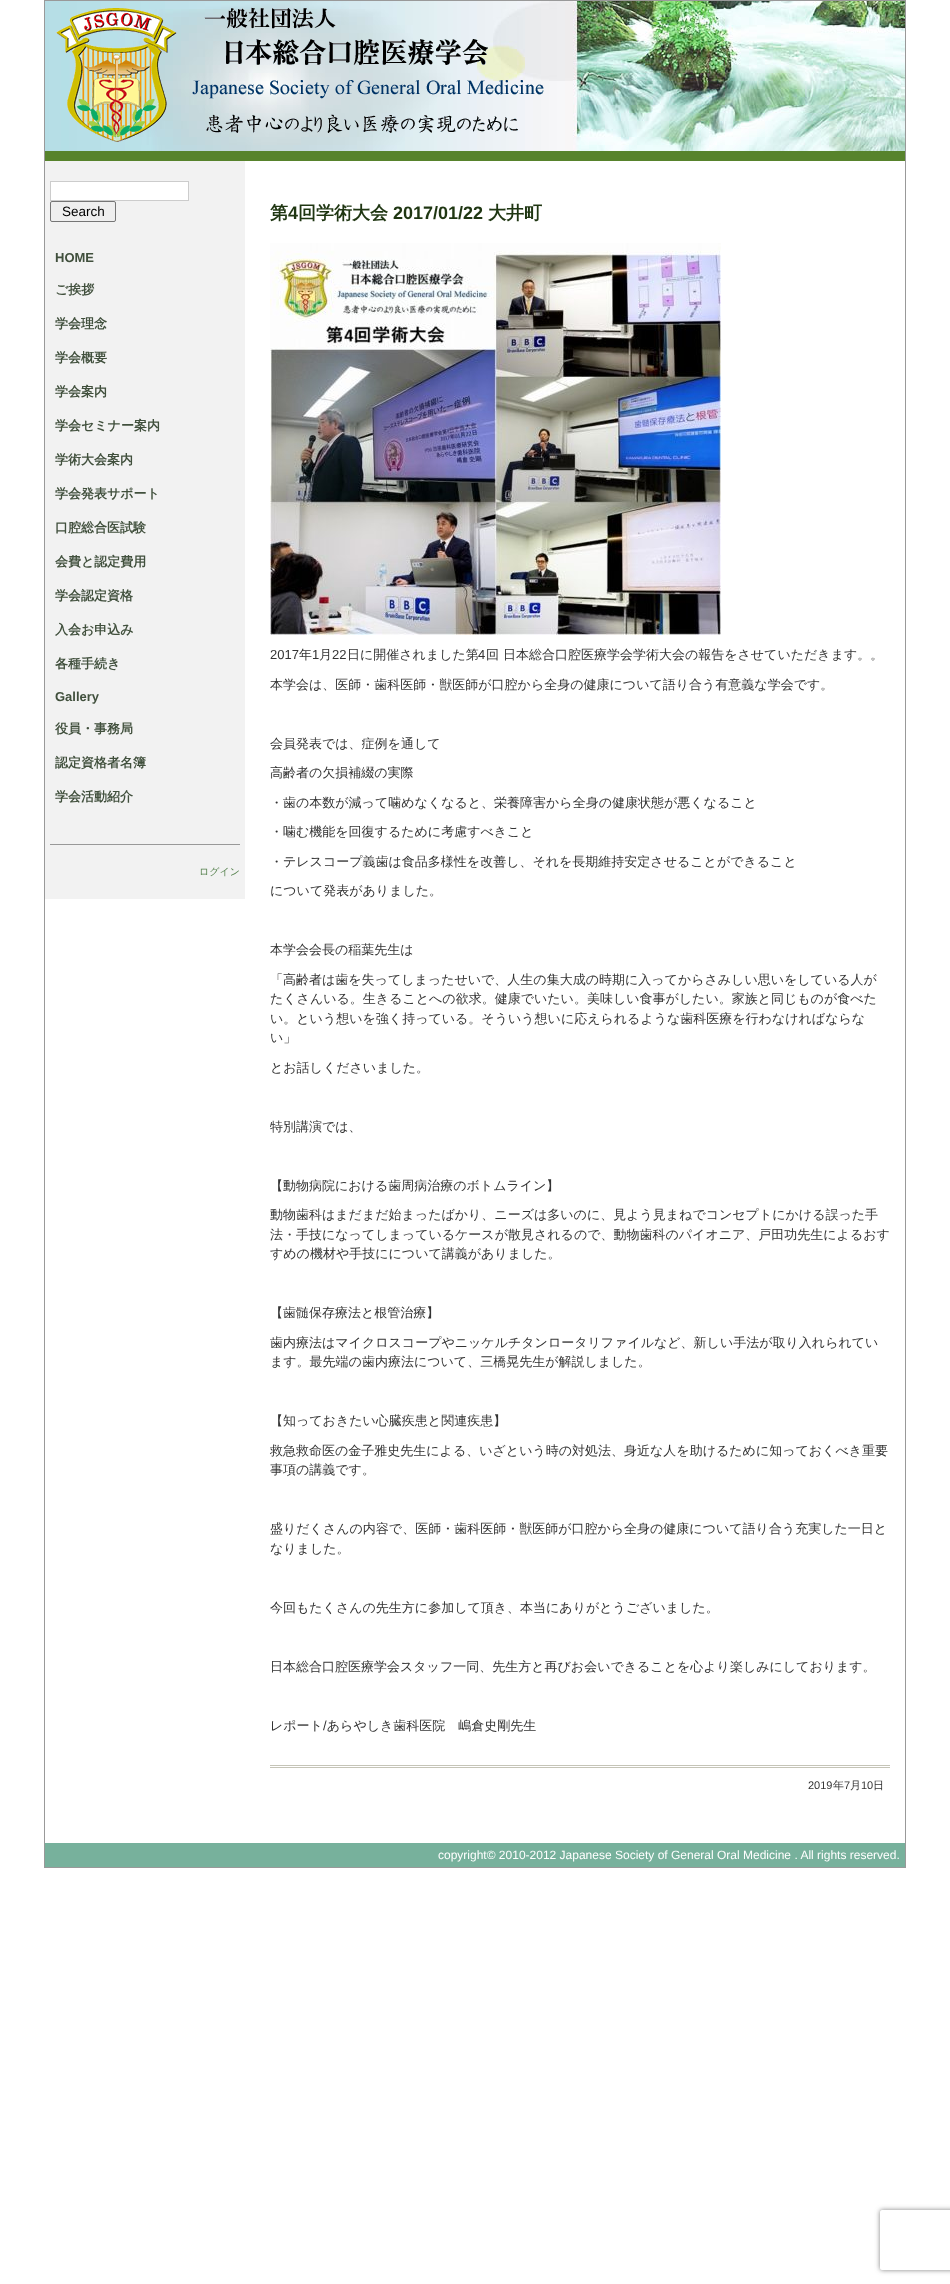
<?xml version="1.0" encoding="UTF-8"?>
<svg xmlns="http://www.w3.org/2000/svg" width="950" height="2284">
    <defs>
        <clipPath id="clip1"><path d="M 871 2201 H 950 V 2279 H 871 Z M 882 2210 H 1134 C 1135 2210 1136 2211 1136 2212 V 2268 C 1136 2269 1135 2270 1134 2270 H 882 C 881 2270 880 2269 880 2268 V 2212 C 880 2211 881 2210 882 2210 Z" clip-rule="evenodd"/></clipPath>
        <filter id="blur1" x="-50%" y="-200%" width="200%" height="500%"><feGaussianBlur stdDeviation="2.5"/></filter>
    </defs>
    <rect width="100%" height="100%" fill="#FFFFFF"/>
    <rect x="44.5" y="0.5" width="861" height="1867" fill="none" stroke="#999999"/>
    <image x="45" y="1" width="860" height="150" href="img_01.png"/>
    <rect x="45" y="151" width="860" height="10" fill="#57832C"/>
    <image x="56" y="7" width="488" height="135" href="img_02.png"/>
    <rect x="45" y="161" width="200" height="738" fill="#F2F2F2"/>
    <rect x="50.5" y="181.5" width="138" height="19" fill="#FFFFFF" stroke="#CCCCCC"/>
    <rect x="50.5" y="201.5" width="65" height="20" rx="1.5" fill="#EFEFEF" stroke="#767676"/>
    <text x="62" y="216" font-family="Liberation Sans" font-size="13.5" fill="#000000">Search</text>
    <text x="55" y="262" font-family="Liberation Sans" font-size="13" font-weight="700" fill="#41503D">HOME</text>
    <text x="55" y="294" font-family="WenQuanYi Zen Hei" font-size="13" font-weight="700" fill="#41503D">ご挨拶</text>
    <text x="55" y="328" font-family="WenQuanYi Zen Hei" font-size="13" font-weight="700" fill="#41503D">学会理念</text>
    <text x="55" y="362" font-family="WenQuanYi Zen Hei" font-size="13" font-weight="700" fill="#41503D">学会概要</text>
    <text x="55" y="396" font-family="WenQuanYi Zen Hei" font-size="13" font-weight="700" fill="#41503D">学会案内</text>
    <text x="55" y="430" font-family="WenQuanYi Zen Hei" font-size="13" font-weight="700" fill="#41503D">学会セミナー案内</text>
    <text x="55" y="464" font-family="WenQuanYi Zen Hei" font-size="13" font-weight="700" fill="#41503D">学術大会案内</text>
    <text x="55" y="498" font-family="WenQuanYi Zen Hei" font-size="13" font-weight="700" fill="#41503D">学会発表サポート</text>
    <text x="55" y="532" font-family="WenQuanYi Zen Hei" font-size="13" font-weight="700" fill="#41503D">口腔総合医試験</text>
    <text x="55" y="566" font-family="WenQuanYi Zen Hei" font-size="13" font-weight="700" fill="#41503D">会費と認定費用</text>
    <text x="55" y="600" font-family="WenQuanYi Zen Hei" font-size="13" font-weight="700" fill="#41503D">学会認定資格</text>
    <text x="55" y="634" font-family="WenQuanYi Zen Hei" font-size="13" font-weight="700" fill="#41503D">入会お申込み</text>
    <text x="55" y="668" font-family="WenQuanYi Zen Hei" font-size="13" font-weight="700" fill="#41503D">各種手続き</text>
    <text x="55" y="701" font-family="Liberation Sans" font-size="13" font-weight="700" fill="#41503D">Gallery</text>
    <text x="55" y="733" font-family="WenQuanYi Zen Hei" font-size="13" font-weight="700" fill="#41503D">役員・事務局</text>
    <text x="55" y="767" font-family="WenQuanYi Zen Hei" font-size="13" font-weight="700" fill="#41503D">認定資格者名簿</text>
    <text x="55" y="801" font-family="WenQuanYi Zen Hei" font-size="13" font-weight="700" fill="#41503D">学会活動紹介</text>
    <rect x="50" y="844" width="190" height="1" fill="#999999"/>
    <text x="199" y="875" font-family="WenQuanYi Zen Hei" font-size="10" font-weight="500" fill="#598451">ログイン</text>
    <text x="270" y="219" font-family="WenQuanYi Zen Hei" font-size="18" font-weight="700" fill="#1F3612">第</text>
    <text x="288" y="219" font-family="Liberation Sans" font-size="18" font-weight="700" fill="#1F3612">4</text>
    <text x="298" y="219" font-family="WenQuanYi Zen Hei" font-size="18" font-weight="700" fill="#1F3612">回学術大会</text>
    <text x="393" y="219" font-family="Liberation Sans" font-size="18" font-weight="700" fill="#1F3612">2017/01/22</text>
    <text x="488" y="219" font-family="WenQuanYi Zen Hei" font-size="18" font-weight="700" fill="#1F3612">大井町</text>
    <image x="270" y="243" width="451" height="392" href="img_03.png"/>
    <text x="270" y="659" font-family="Liberation Sans" font-size="13" fill="#333333">2017</text>
    <text x="299" y="659" font-family="WenQuanYi Zen Hei" font-size="13" font-weight="500" fill="#333333">年</text>
    <text x="312" y="659" font-family="Liberation Sans" font-size="13" fill="#333333">1</text>
    <text x="319" y="659" font-family="WenQuanYi Zen Hei" font-size="13" font-weight="500" fill="#333333">月</text>
    <text x="332" y="659" font-family="Liberation Sans" font-size="13" fill="#333333">22</text>
    <text x="347" y="659" font-family="WenQuanYi Zen Hei" font-size="13" font-weight="500" fill="#333333">日に開催されました第</text>
    <text x="478" y="659" font-family="Liberation Sans" font-size="13" fill="#333333">4</text>
    <text x="486" y="659" font-family="WenQuanYi Zen Hei" font-size="13" font-weight="500" fill="#333333">回 日本総合口腔医療学会学術大会の報告をさせていただきます。。</text>
    <text x="270" y="689" font-family="WenQuanYi Zen Hei" font-size="13" font-weight="500" fill="#333333">本学会は、医師・歯科医師・獣医師が口腔から全身の健康について語り合う有意義な学会です。</text>
    <text x="270" y="748" font-family="WenQuanYi Zen Hei" font-size="13" font-weight="500" fill="#333333">会員発表では、症例を通して</text>
    <text x="270" y="777" font-family="WenQuanYi Zen Hei" font-size="13" font-weight="500" fill="#333333">高齢者の欠損補綴の実際</text>
    <text x="270" y="807" font-family="WenQuanYi Zen Hei" font-size="13" font-weight="500" fill="#333333">・歯の本数が減って噛めなくなると、栄養障害から全身の健康状態が悪くなること</text>
    <text x="270" y="836" font-family="WenQuanYi Zen Hei" font-size="13" font-weight="500" fill="#333333">・噛む機能を回復するために考慮すべきこと</text>
    <text x="270" y="866" font-family="WenQuanYi Zen Hei" font-size="13" font-weight="500" fill="#333333">・テレスコープ義歯は食品多様性を改善し、それを長期維持安定させることができること</text>
    <text x="270" y="895" font-family="WenQuanYi Zen Hei" font-size="13" font-weight="500" fill="#333333">について発表がありました。</text>
    <text x="270" y="954" font-family="WenQuanYi Zen Hei" font-size="13" font-weight="500" fill="#333333">本学会会長の稲葉先生は</text>
    <text font-family="WenQuanYi Zen Hei" font-size="13" font-weight="500" fill="#333333">
        <tspan x="270" y="984">「高齢者は歯を失ってしまったせいで、人生の集大成の時期に入ってからさみしい思いをしている人が</tspan>
        <tspan x="270" y="1003">たくさんいる。生きることへの欲求。健康でいたい。美味しい食事がしたい。家族と同じものが食べた</tspan>
        <tspan x="270" y="1023">い。という想いを強く持っている。そういう想いに応えられるような歯科医療を行わなければならな</tspan>
        <tspan x="270" y="1042">い」</tspan>
    </text>
    <text x="270" y="1072" font-family="WenQuanYi Zen Hei" font-size="13" font-weight="500" fill="#333333">とお話しくださいました。</text>
    <text x="270" y="1131" font-family="WenQuanYi Zen Hei" font-size="13" font-weight="500" fill="#333333">特別講演では、</text>
    <text x="270" y="1190" font-family="WenQuanYi Zen Hei" font-size="13" font-weight="500" fill="#333333">【動物病院における歯周病治療のボトムライン】</text>
    <text font-family="WenQuanYi Zen Hei" font-size="13" font-weight="500" fill="#333333">
        <tspan x="270" y="1219">動物歯科はまだまだ始まったばかり、ニーズは多いのに、見よう見まねでコンセプトにかける誤った手</tspan>
        <tspan x="270" y="1239">法・手技になってしまっているケースが散見されるので、動物歯科のパイオニア、戸田功先生によるおす</tspan>
        <tspan x="270" y="1258">すめの機材や手技にについて講義がありました。</tspan>
    </text>
    <text x="270" y="1317" font-family="WenQuanYi Zen Hei" font-size="13" font-weight="500" fill="#333333">【歯髄保存療法と根管治療】</text>
    <text font-family="WenQuanYi Zen Hei" font-size="13" font-weight="500" fill="#333333">
        <tspan x="270" y="1347">歯内療法はマイクロスコープやニッケルチタンロータリファイルなど、新しい手法が取り入れられてい</tspan>
        <tspan x="270" y="1366">ます。最先端の歯内療法について、三橋晃先生が解説しました。</tspan>
    </text>
    <text x="270" y="1425" font-family="WenQuanYi Zen Hei" font-size="13" font-weight="500" fill="#333333">【知っておきたい心臓疾患と関連疾患】</text>
    <text font-family="WenQuanYi Zen Hei" font-size="13" font-weight="500" fill="#333333">
        <tspan x="270" y="1455">救急救命医の金子雅史先生による、いざという時の対処法、身近な人を助けるために知っておくべき重要</tspan>
        <tspan x="270" y="1474">事項の講義です。</tspan>
    </text>
    <text font-family="WenQuanYi Zen Hei" font-size="13" font-weight="500" fill="#333333">
        <tspan x="270" y="1533">盛りだくさんの内容で、医師・歯科医師・獣医師が口腔から全身の健康について語り合う充実した一日と</tspan>
        <tspan x="270" y="1553">なりました。</tspan>
    </text>
    <text x="270" y="1612" font-family="WenQuanYi Zen Hei" font-size="13" font-weight="500" fill="#333333">今回もたくさんの先生方に参加して頂き、本当にありがとうございました。</text>
    <text x="270" y="1671" font-family="WenQuanYi Zen Hei" font-size="13" font-weight="500" fill="#333333">日本総合口腔医療学会スタッフ一同、先生方と再びお会いできることを心より楽しみにしております。</text>
    <text x="270" y="1730" font-family="WenQuanYi Zen Hei" font-size="13" font-weight="500" fill="#333333">レポート あらやしき歯科医院　嶋倉史剛先生</text>
    <text x="323" y="1730" font-family="Liberation Sans" font-size="13" fill="#333333">/</text>
    <rect x="270" y="1765" width="620" height="1" fill="#C5C4B7"/>
    <rect x="270" y="1767" width="620" height="1" fill="#C5C4B7"/>
    <text x="808" y="1789" font-family="Liberation Sans" font-size="11" fill="#333333">2019</text>
    <text x="833" y="1789" font-family="WenQuanYi Zen Hei" font-size="11" font-weight="500" fill="#333333">年</text>
    <text x="844" y="1789" font-family="Liberation Sans" font-size="11" fill="#333333">7</text>
    <text x="850" y="1789" font-family="WenQuanYi Zen Hei" font-size="11" font-weight="500" fill="#333333">月</text>
    <text x="861" y="1789" font-family="Liberation Sans" font-size="11" fill="#333333">10</text>
    <text x="873" y="1789" font-family="WenQuanYi Zen Hei" font-size="11" font-weight="500" fill="#333333">日</text>
    <rect x="45" y="1843" width="860" height="24" fill="#77B19C"/>
    <text x="438" y="1859" font-family="Liberation Sans" font-size="12" fill="#FFFFFF">copyright© 2010-2012 Japanese Society of General Oral Medicine . All rights reserved.</text>
    <g clip-path="url(#clip1)">
        <rect x="880" y="2210" width="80" height="60" rx="2" fill="#808080" filter="url(#blur1)"/>
    </g>
</svg>
